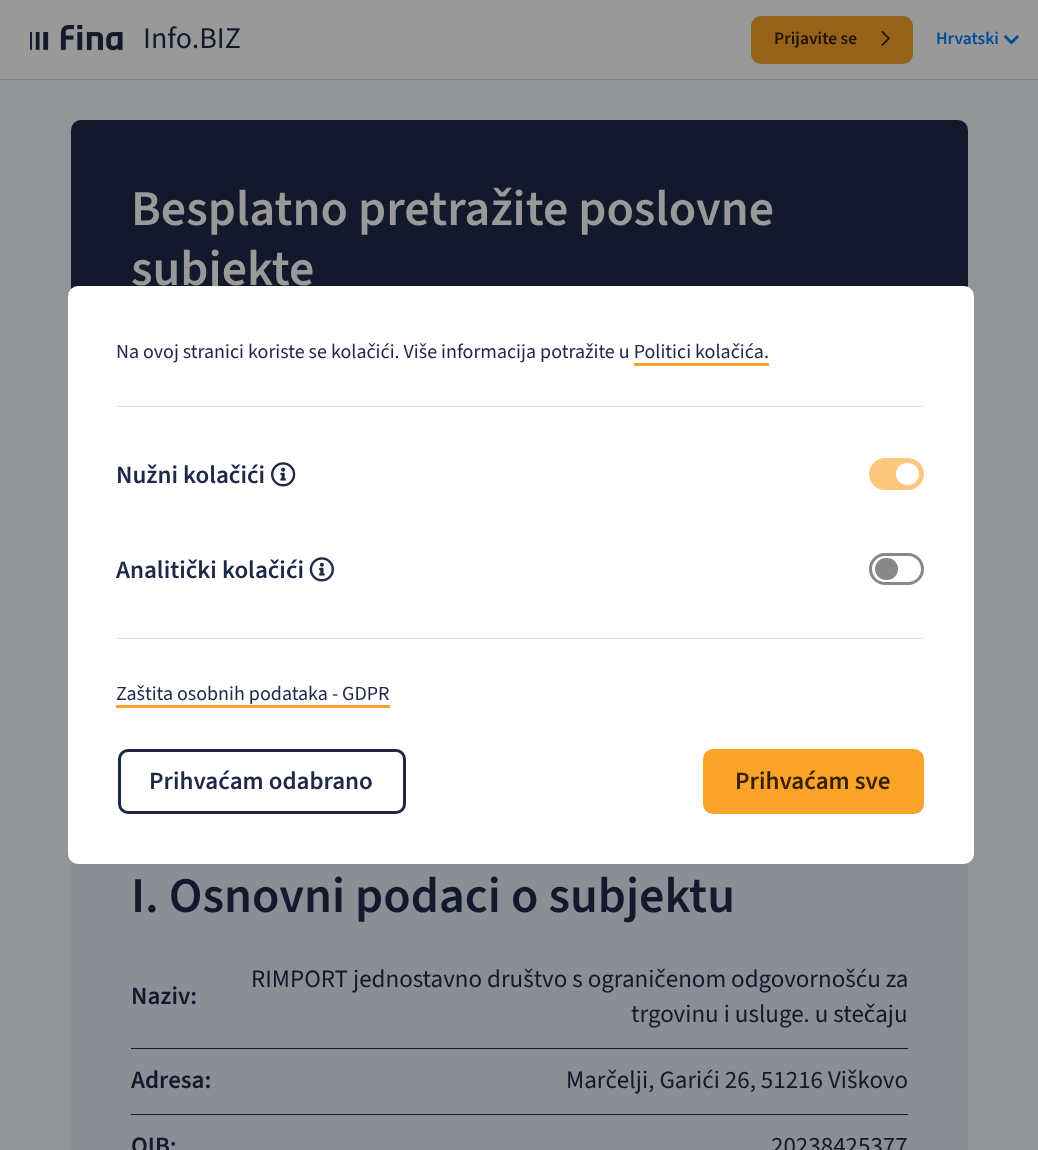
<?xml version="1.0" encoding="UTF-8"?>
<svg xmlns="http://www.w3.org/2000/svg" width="1038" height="1150">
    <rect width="100%" height="100%" fill="#929497"/>
    <rect x="0" y="0" width="1038" height="79" fill="#999999"/>
    <rect x="0" y="79" width="1038" height="1" fill="#828282"/>
    <image x="30" y="25" width="93" height="26" href="img_01.png"/>
    <text x="143" y="48" font-family="'Source Sans 3'" font-size="30" fill="#13182C">Info.BIZ</text>
    <rect x="752.5" y="17.5" width="159" height="45" rx="8.5" fill="#966219" stroke="#966219" stroke-width="3"/>
    <text x="774" y="44" font-family="'Source Sans 3'" font-size="17.5" font-weight="600" fill="#211401">Prijavite se</text>
    <image x="881" y="30" width="9" height="16" href="img_02.png"/>
    <text x="936" y="44" font-family="'Source Sans 3'" font-size="17.5" font-weight="600" fill="#004A99">Hrvatski</text>
    <image x="1004" y="35" width="15" height="10" href="img_03.png"/>
    <rect x="71" y="120" width="897" height="415" rx="10" fill="#13182C"/>
    <text font-family="'Source Sans 3'" font-size="50" font-weight="600" fill="#999999">
        <tspan x="131" y="225">Besplatno pretražite poslovne</tspan>
        <tspan x="131" y="285">subjekte</tspan>
    </text>
    <rect x="71" y="861" width="897" height="289" fill="#8B8E95"/>
    <text x="131" y="912" font-family="'Source Sans 3'" font-size="50" font-weight="600" fill="#13182C">I. Osnovni podaci o subjektu</text>
    <rect x="131" y="1048" width="777" height="1" fill="#13182C"/>
    <text x="131" y="1004" font-family="'Source Sans 3'" font-size="25" font-weight="600" fill="#13182C">Naziv:</text>
    <text x="251" y="987" font-family="'Source Sans 3'" font-size="25" fill="#13182C">RIMPORT jednostavno društvo s ograničenom odgovornošću za</text>
    <text x="631" y="1022" font-family="'Source Sans 3'" font-size="25" fill="#13182C">trgovinu i usluge. u stečaju</text>
    <rect x="131" y="1114" width="777" height="1" fill="#13182C"/>
    <text x="131" y="1088" font-family="'Source Sans 3'" font-size="25" font-weight="600" fill="#13182C">Adresa:</text>
    <text x="566" y="1088" font-family="'Source Sans 3'" font-size="25" fill="#13182C">Marčelji, Garići 26, 51216 Viškovo</text>
    <text x="131" y="1154" font-family="'Source Sans 3'" font-size="25" font-weight="600" fill="#13182C">OIB:</text>
    <text x="771" y="1154" font-family="'Source Sans 3'" font-size="25" fill="#13182C">20238425377</text>
    <rect x="68" y="286" width="906" height="578" rx="10" fill="#FFFFFF"/>
    <rect x="118" y="406" width="806" height="1" fill="#DDDDDD"/>
    <text x="116" y="358" font-family="'Source Sans 3'" font-size="20" fill="#202849">Na ovoj stranici koriste se kolačići. Više informacija potražite u Politici kolačića.</text>
    <rect x="634" y="363" width="135" height="3" fill="#FAA329"/>
    <text x="116" y="483" font-family="'Source Sans 3'" font-size="25" font-weight="600" fill="#202849">Nužni kolačići</text>
    <image x="271" y="462" width="25" height="25" href="img_04.png"/>
    <rect x="869" y="458" width="55" height="32" rx="16" fill="#FCC87F"/>
    <rect x="896" y="463" width="23" height="22" rx="11" fill="#FFFFFF"/>
    <text x="116" y="578" font-family="'Source Sans 3'" font-size="25" font-weight="600" fill="#202849">Analitički kolačići</text>
    <image x="309" y="557" width="25" height="25" href="img_05.png"/>
    <rect x="870.5" y="554.5" width="52" height="29" rx="14.5" fill="none" stroke="#888888" stroke-width="3"/>
    <rect x="875" y="558" width="23" height="22" rx="11" fill="#888888"/>
    <rect x="118" y="638" width="806" height="1" fill="#DDDDDD"/>
    <text x="116" y="700" font-family="'Source Sans 3'" font-size="20" fill="#202849">Zaštita osobnih podataka - GDPR</text>
    <rect x="116" y="705" width="274" height="3" fill="#FAA329"/>
    <rect x="119.5" y="750.5" width="285" height="62" rx="8.5" fill="none" stroke="#202849" stroke-width="3"/>
    <text x="149" y="789" font-family="'Source Sans 3'" font-size="25" font-weight="600" fill="#202849">Prihvaćam odabrano</text>
    <rect x="704.5" y="750.5" width="218" height="62" rx="8.5" fill="#FAA329" stroke="#FAA329" stroke-width="3"/>
    <text x="735" y="789" font-family="'Source Sans 3'" font-size="25" font-weight="600" fill="#372101">Prihvaćam sve</text>
</svg>
